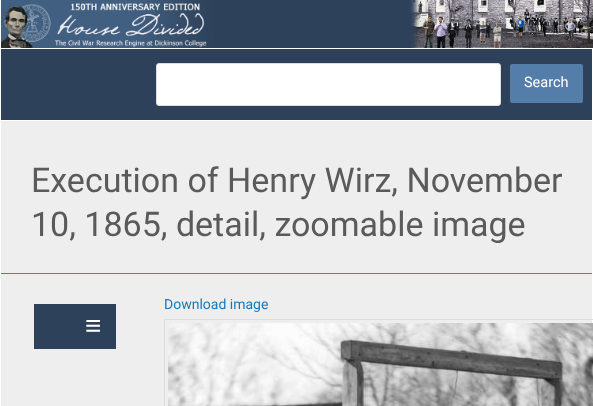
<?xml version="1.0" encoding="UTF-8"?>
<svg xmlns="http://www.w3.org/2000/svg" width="593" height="406">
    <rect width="100%" height="100%" fill="#FFFFFF"/>
    <image x="1" y="0" width="592" height="48" href="img_01.png"/>
    <rect x="1" y="49" width="591" height="71" fill="#2D415A"/>
    <rect x="156.5" y="63.5" width="344" height="42" rx="2.5" fill="#FFFFFF" stroke="#DDDDDD"/>
    <rect x="509.5" y="63.5" width="74" height="40" rx="2.5" fill="#547EA9" stroke="#2D415A"/>
    <text x="524" y="87" font-family="Roboto" font-size="14.5" fill="#FFFFFF">Search</text>
    <rect x="1" y="121" width="591" height="152" fill="#EEEEEE"/>
    <rect x="1" y="273" width="591" height="1" fill="#547EA9"/>
    <text font-family="Roboto" font-size="34" fill="#5B5A5A">
        <tspan x="31" y="192">Execution of Henry Wirz, November</tspan>
        <tspan x="31" y="236">10, 1865, detail, zoomable image</tspan>
    </text>
    <rect x="1" y="274" width="591" height="132" fill="#EEEEEE"/>
    <text x="164" y="309" font-family="Roboto" font-size="14" fill="#1779BA">Download image</text>
    <rect x="164.5" y="319.5" width="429" height="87" fill="none" stroke="#DDDDDD"/>
    <image x="168" y="323" width="425" height="83" href="img_02.png"/>
    <rect x="34" y="304" width="82" height="45" fill="#2D415A"/>
    <text x="85" y="335" font-family="Liberation Sans" font-size="28" font-weight="700" fill="#FFFFFF">≡</text>
</svg>
